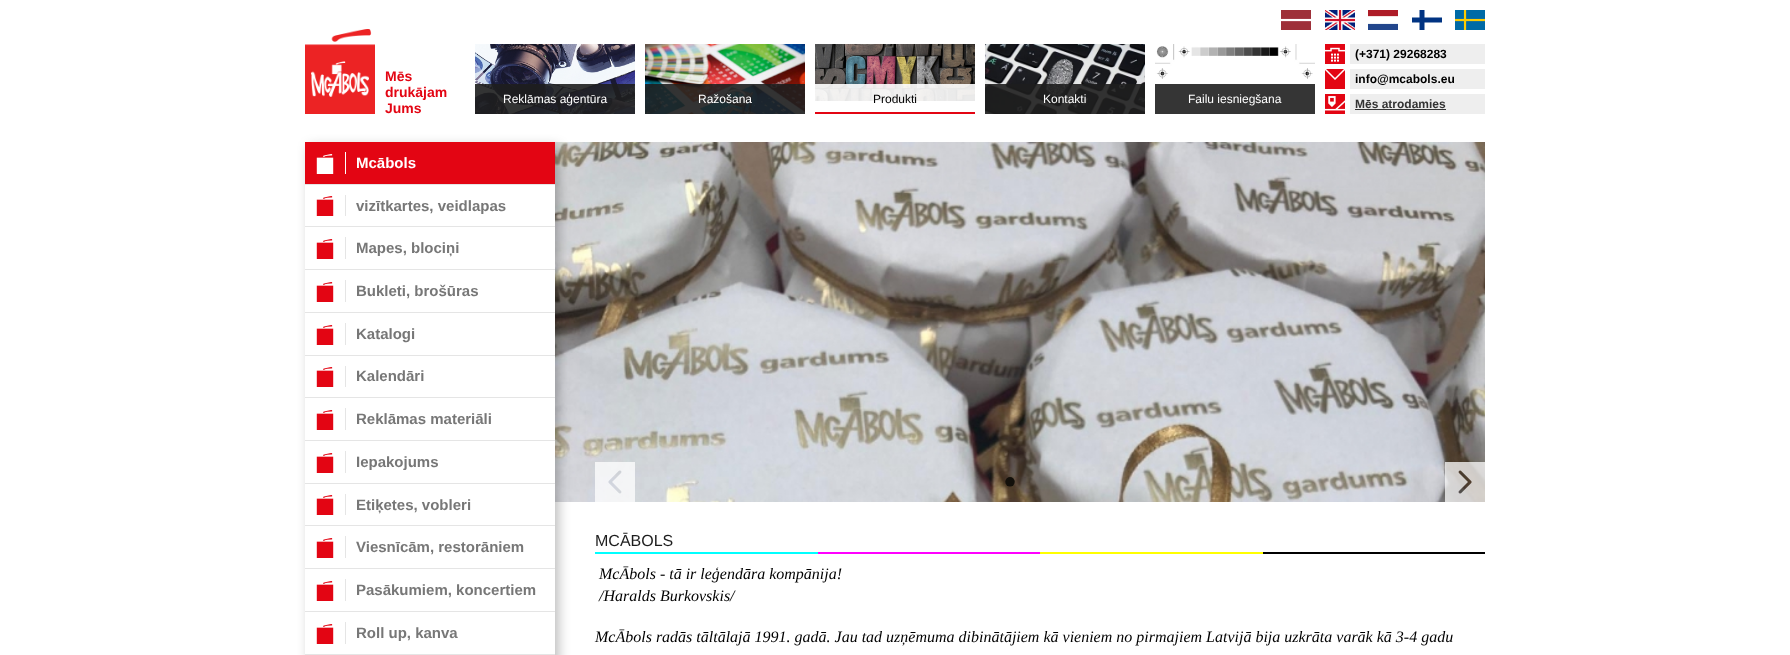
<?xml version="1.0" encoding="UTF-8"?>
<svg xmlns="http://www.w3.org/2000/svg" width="1790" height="655">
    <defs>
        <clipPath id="clip1"><path d="M 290 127 H 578 V 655 H 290 Z M 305 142 H 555 V 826 H 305 Z" clip-rule="evenodd"/></clipPath>
        <filter id="blur1" x="-50%" y="-200%" width="200%" height="500%"><feGaussianBlur stdDeviation="6"/></filter>
    </defs>
    <rect width="100%" height="100%" fill="#FFFFFF"/>
    <image x="1281" y="10" width="30" height="20" href="img_01.png"/>
    <image x="1325" y="10" width="30" height="20" href="img_02.png"/>
    <image x="1368" y="10" width="30" height="20" href="img_03.png"/>
    <image x="1412" y="10" width="30" height="20" href="img_04.png"/>
    <image x="1455" y="10" width="30" height="20" href="img_05.png"/>
    <image x="305" y="29" width="70" height="85" href="img_06.png"/>
    <text font-family="Liberation Sans" font-size="14" font-weight="700" fill="#E30513">
        <tspan x="385" y="81">Mēs</tspan>
        <tspan x="385" y="97">drukājam</tspan>
        <tspan x="385" y="113">Jums</tspan>
    </text>
    <image x="475" y="44" width="160" height="70" href="img_07.png"/>
    <rect x="475" y="84" width="160" height="30" fill="#1E1E1E" fill-opacity="0.9"/>
    <text x="503" y="103" font-family="Liberation Sans" font-size="12" fill="#FFFFFF">Reklāmas aģentūra</text>
    <image x="645" y="44" width="160" height="70" href="img_08.png"/>
    <rect x="645" y="84" width="160" height="30" fill="#1E1E1E" fill-opacity="0.9"/>
    <text x="698" y="103" font-family="Liberation Sans" font-size="12" fill="#FFFFFF">Ražošana</text>
    <image x="815" y="44" width="160" height="57" href="img_09.png"/>
    <rect x="815" y="84" width="160" height="17" fill="#FFFFFF" fill-opacity="0.9"/>
    <rect x="815" y="112" width="160" height="2" fill="#E30513"/>
    <text x="873" y="103" font-family="Liberation Sans" font-size="12" fill="#000000">Produkti</text>
    <image x="985" y="44" width="160" height="70" href="img_10.png"/>
    <rect x="985" y="84" width="160" height="30" fill="#1E1E1E" fill-opacity="0.9"/>
    <text x="1043" y="103" font-family="Liberation Sans" font-size="12" fill="#FFFFFF">Kontakti</text>
    <image x="1155" y="44" width="160" height="35" href="img_11.png"/>
    <rect x="1155" y="84" width="160" height="30" fill="#353535"/>
    <text x="1188" y="103" font-family="Liberation Sans" font-size="12" fill="#FFFFFF">Failu iesniegšana</text>
    <image x="1325" y="44" width="20" height="20" href="img_12.png"/>
    <rect x="1350" y="44" width="135" height="20" fill="#EEEEEE"/>
    <text x="1355" y="58" font-family="Liberation Sans" font-size="12" font-weight="700" fill="#000000">(+371) 29268283</text>
    <image x="1325" y="69" width="20" height="20" href="img_13.png"/>
    <rect x="1350" y="69" width="135" height="20" fill="#EEEEEE"/>
    <text x="1355" y="83" font-family="Liberation Sans" font-size="12" font-weight="700" fill="#000000">info@mcabols.eu</text>
    <image x="1325" y="94" width="20" height="20" href="img_14.png"/>
    <rect x="1350" y="94" width="135" height="20" fill="#EEEEEE"/>
    <text x="1355" y="108" font-family="Liberation Sans" font-size="12" font-weight="700" fill="#333333">Mēs atrodamies</text>
    <rect x="1355" y="109" width="91" height="1" fill="#333333"/>
    <image x="555" y="142" width="930" height="360" href="img_17.png"/>
    <g clip-path="url(#clip1)">
        <rect x="309" y="146" width="250" height="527" fill="#000000" fill-opacity="0.25" filter="url(#blur1)"/>
    </g>
    <rect x="305" y="142" width="250" height="42" fill="#E30513"/>
    <rect x="305" y="184" width="250" height="1" fill="#E5E5E5"/>
    <image x="316" y="154" width="18" height="20" href="img_15.png"/>
    <rect x="345" y="152" width="1" height="22" fill="#FFFFFF"/>
    <text x="356" y="168" font-family="Liberation Sans" font-size="15" font-weight="700" fill="#FFFFFF">Mcābols</text>
    <rect x="305" y="226" width="250" height="1" fill="#E5E5E5"/>
    <image x="316" y="196" width="18" height="20" href="img_16.png"/>
    <rect x="345" y="195" width="1" height="21" fill="#E5E5E5"/>
    <text x="356" y="211" font-family="Liberation Sans" font-size="15" font-weight="700" fill="#777777">vizītkartes, veidlapas</text>
    <rect x="305" y="269" width="250" height="1" fill="#E5E5E5"/>
    <image x="316" y="239" width="18" height="20" href="img_16.png"/>
    <rect x="345" y="237" width="1" height="22" fill="#E5E5E5"/>
    <text x="356" y="253" font-family="Liberation Sans" font-size="15" font-weight="700" fill="#777777">Mapes, blociņi</text>
    <rect x="305" y="312" width="250" height="1" fill="#E5E5E5"/>
    <image x="316" y="282" width="18" height="20" href="img_16.png"/>
    <rect x="345" y="280" width="1" height="22" fill="#E5E5E5"/>
    <text x="356" y="296" font-family="Liberation Sans" font-size="15" font-weight="700" fill="#777777">Bukleti, brošūras</text>
    <rect x="305" y="355" width="250" height="1" fill="#E5E5E5"/>
    <image x="316" y="325" width="18" height="20" href="img_16.png"/>
    <rect x="345" y="323" width="1" height="22" fill="#E5E5E5"/>
    <text x="356" y="339" font-family="Liberation Sans" font-size="15" font-weight="700" fill="#777777">Katalogi</text>
    <rect x="305" y="397" width="250" height="1" fill="#E5E5E5"/>
    <image x="316" y="367" width="18" height="20" href="img_16.png"/>
    <rect x="345" y="366" width="1" height="21" fill="#E5E5E5"/>
    <text x="356" y="381" font-family="Liberation Sans" font-size="15" font-weight="700" fill="#777777">Kalendāri</text>
    <rect x="305" y="440" width="250" height="1" fill="#E5E5E5"/>
    <image x="316" y="410" width="18" height="20" href="img_16.png"/>
    <rect x="345" y="408" width="1" height="22" fill="#E5E5E5"/>
    <text x="356" y="424" font-family="Liberation Sans" font-size="15" font-weight="700" fill="#777777">Reklāmas materiāli</text>
    <rect x="305" y="483" width="250" height="1" fill="#E5E5E5"/>
    <image x="316" y="453" width="18" height="20" href="img_16.png"/>
    <rect x="345" y="451" width="1" height="22" fill="#E5E5E5"/>
    <text x="356" y="467" font-family="Liberation Sans" font-size="15" font-weight="700" fill="#777777">Iepakojums</text>
    <rect x="305" y="525" width="250" height="1" fill="#E5E5E5"/>
    <image x="316" y="495" width="18" height="20" href="img_16.png"/>
    <rect x="345" y="494" width="1" height="21" fill="#E5E5E5"/>
    <text x="356" y="510" font-family="Liberation Sans" font-size="15" font-weight="700" fill="#777777">Etiķetes, vobleri</text>
    <rect x="305" y="568" width="250" height="1" fill="#E5E5E5"/>
    <image x="316" y="538" width="18" height="20" href="img_16.png"/>
    <rect x="345" y="536" width="1" height="22" fill="#E5E5E5"/>
    <text x="356" y="552" font-family="Liberation Sans" font-size="15" font-weight="700" fill="#777777">Viesnīcām, restorāniem</text>
    <rect x="305" y="611" width="250" height="1" fill="#E5E5E5"/>
    <image x="316" y="581" width="18" height="20" href="img_16.png"/>
    <rect x="345" y="579" width="1" height="22" fill="#E5E5E5"/>
    <text x="356" y="595" font-family="Liberation Sans" font-size="15" font-weight="700" fill="#777777">Pasākumiem, koncertiem</text>
    <rect x="305" y="654" width="250" height="1" fill="#E5E5E5"/>
    <image x="316" y="624" width="18" height="20" href="img_16.png"/>
    <rect x="345" y="622" width="1" height="22" fill="#E5E5E5"/>
    <text x="356" y="638" font-family="Liberation Sans" font-size="15" font-weight="700" fill="#777777">Roll up, kanva</text>
    <image x="595" y="462" width="40" height="40" href="img_18.png"/>
    <text x="1003" y="495" font-family="Liberation Serif" font-size="40" fill="#13100B">•</text>
    <image x="1445" y="462" width="40" height="40" href="img_19.png"/>
    <text x="595" y="546" font-family="Liberation Sans" font-size="16" fill="#1D1D1D">MCĀBOLS</text>
    <rect x="595" y="552" width="223" height="2" fill="#00FFFF"/>
    <rect x="818" y="552" width="222" height="2" fill="#FF00FF"/>
    <rect x="1040" y="552" width="223" height="2" fill="#FFFF00"/>
    <rect x="1263" y="552" width="222" height="2" fill="#000000"/>
    <text font-family="Liberation Serif" font-size="16" font-style="italic" fill="#000000">
        <tspan x="599" y="579">McĀbols - tā ir leģendāra kompānija!</tspan>
        <tspan x="599" y="601">/Haralds Burkovskis/</tspan>
    </text>
    <text x="595" y="642" font-family="Liberation Serif" font-size="16" font-style="italic" fill="#000000">McĀbols radās tāltālajā 1991. gadā. Jau tad uzņēmuma dibinātājiem kā vieniem no pirmajiem Latvijā bija uzkrāta varāk kā 3-4 gadu</text>
</svg>
